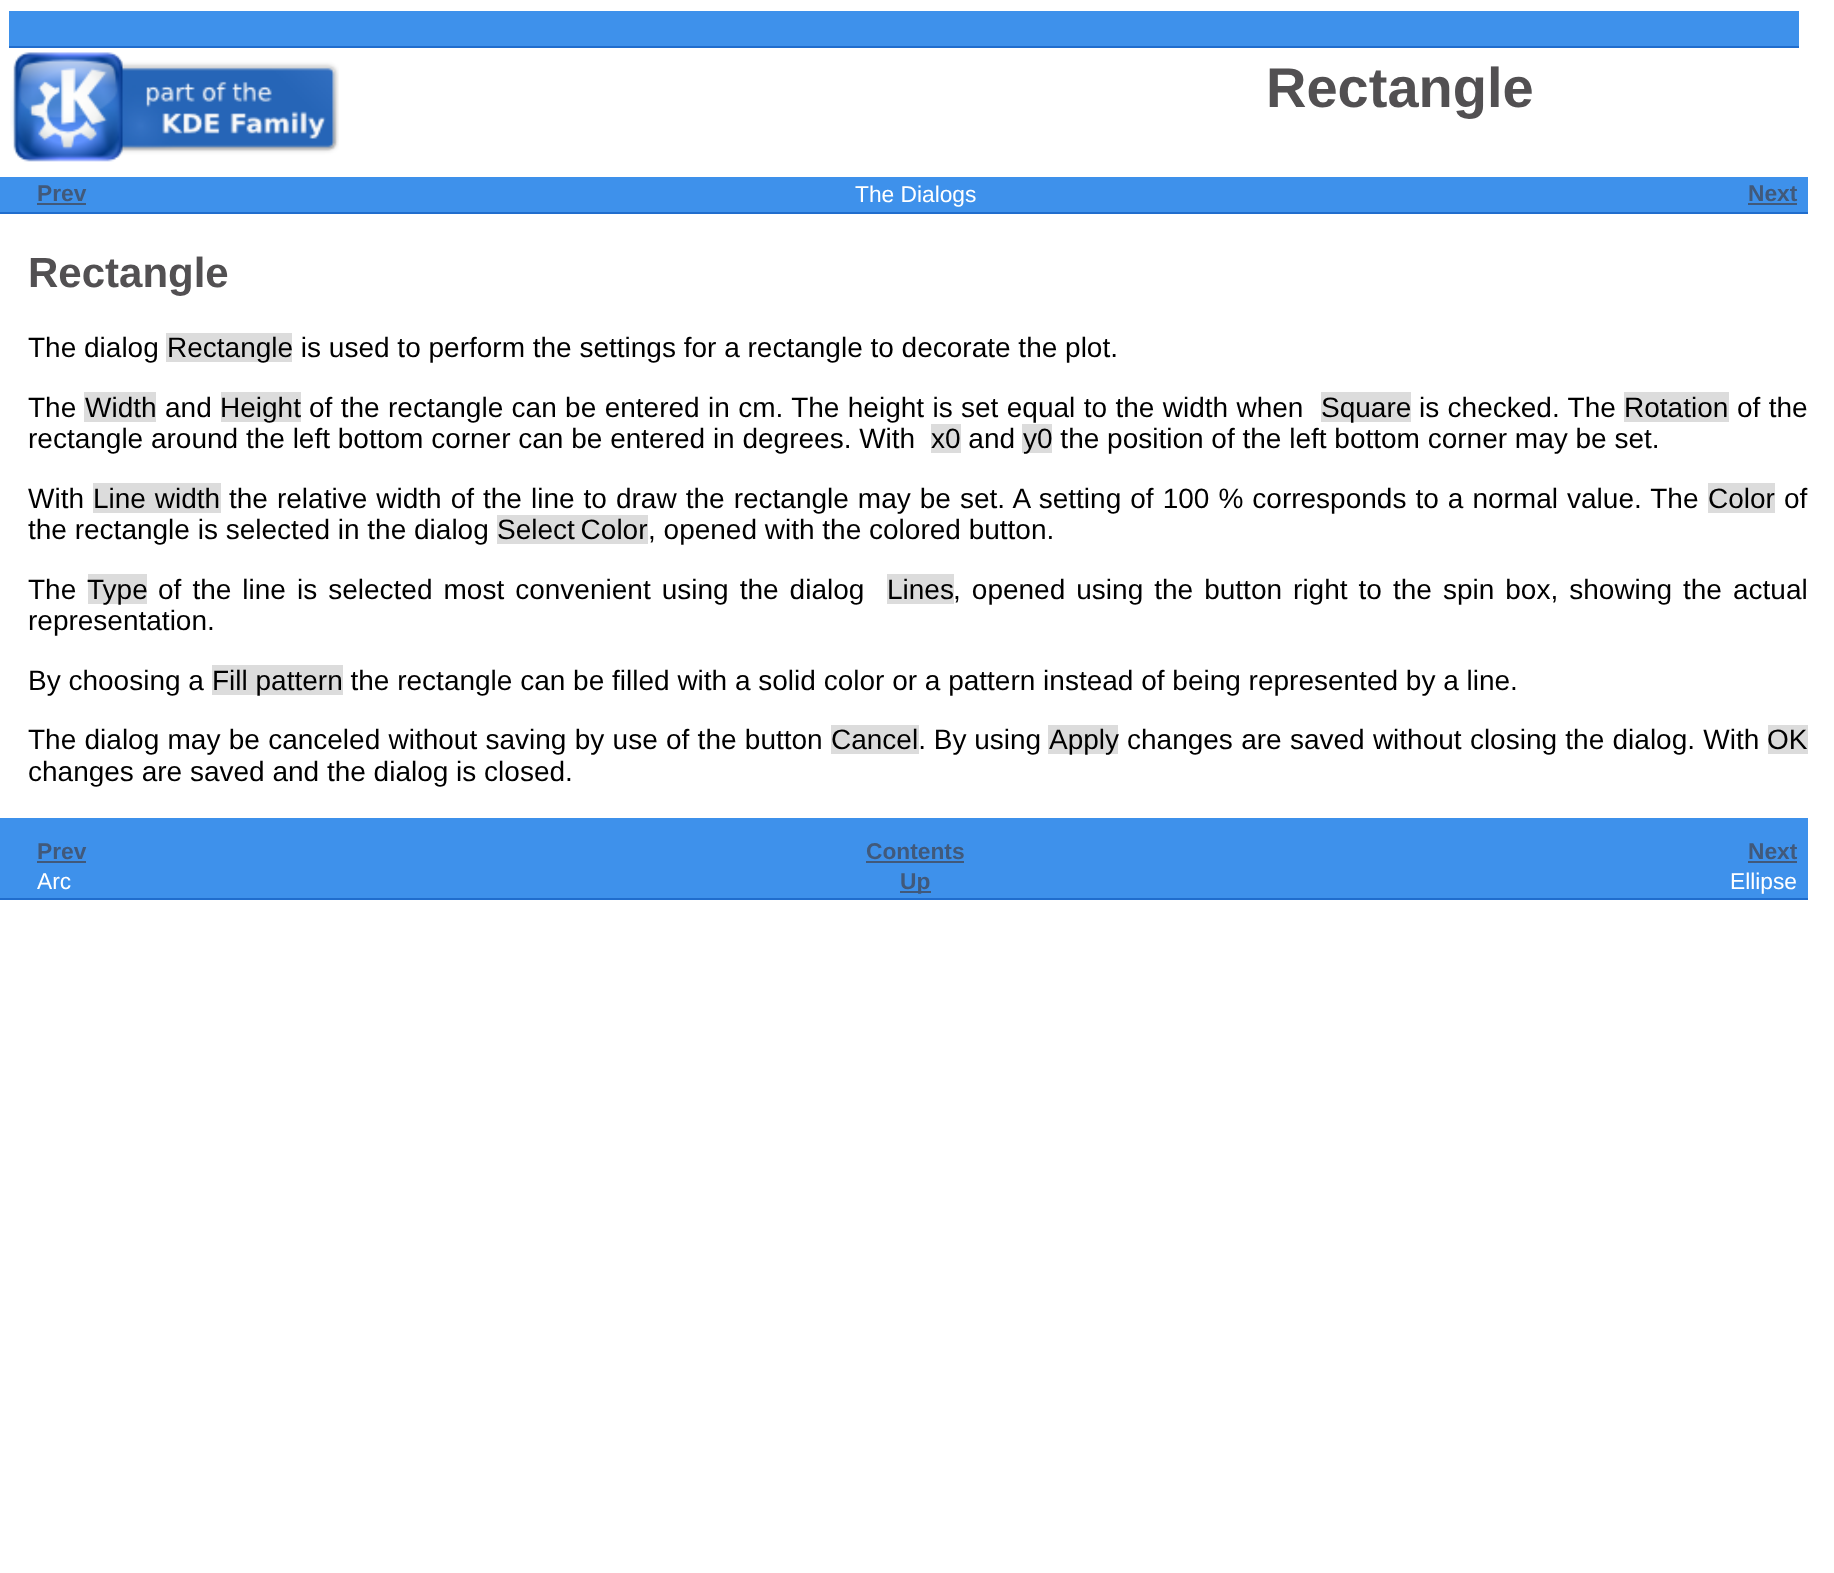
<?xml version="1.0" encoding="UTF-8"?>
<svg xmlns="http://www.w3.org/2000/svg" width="1834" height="1573">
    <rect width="100%" height="100%" fill="#FFFFFF"/>
    <rect x="9" y="11" width="1790" height="35" fill="#3E91EB"/>
    <rect x="9" y="46" width="1790" height="2" fill="#206DCD"/>
    <image x="10" y="52" width="329" height="110" href="img_01.png"/>
    <text x="1266" y="107" font-family="Liberation Sans" font-size="56" font-weight="700" fill="#525052">Rectangle</text>
    <rect x="0" y="177" width="1808" height="35" fill="#3E91EB"/>
    <rect x="0" y="212" width="1808" height="2" fill="#206DCD"/>
    <text x="37" y="201" font-family="Liberation Sans" font-size="22.75" font-weight="700" fill="#41597A">Prev</text>
    <rect x="37" y="203" width="49" height="2" fill="#41597A"/>
    <text x="855" y="202" font-family="Liberation Sans" font-size="22.75" fill="#FFFFFF">The Dialogs</text>
    <text x="1748" y="201" font-family="Liberation Sans" font-size="22.75" font-weight="700" fill="#41597A">Next</text>
    <rect x="1748" y="203" width="49" height="2" fill="#41597A"/>
    <text x="28" y="287" font-family="Liberation Sans" font-size="42" font-weight="700" fill="#525052">Rectangle</text>
    <text x="28" y="357" font-family="Liberation Sans" font-size="28" fill="#000000">The dialog</text>
    <rect x="166" y="333" width="126" height="29" fill="#DCDCDC"/>
    <text x="167" y="357" font-family="Liberation Sans" font-size="28" fill="#000000">Rectangle is used to perform the settings for a rectangle to decorate the plot.</text>
    <text x="28" y="417" font-family="Liberation Sans" font-size="28" fill="#000000">The</text>
    <rect x="84" y="392" width="72" height="30" fill="#DCDCDC"/>
    <text x="85" y="417" font-family="Liberation Sans" font-size="28" fill="#000000">Width</text>
    <text x="165" y="417" font-family="Liberation Sans" font-size="28" fill="#000000">and</text>
    <rect x="221" y="392" width="80" height="30" fill="#DCDCDC"/>
    <text x="220" y="417" font-family="Liberation Sans" font-size="28" fill="#000000">Height</text>
    <text x="309" y="417" word-spacing="0.6" font-family="Liberation Sans" font-size="28" fill="#000000">of the rectangle can be entered in cm. The height is set equal to the width when</text>
    <rect x="1321" y="392" width="90" height="30" fill="#DCDCDC"/>
    <text x="1321" y="417" font-family="Liberation Sans" font-size="28" fill="#000000">Square</text>
    <text x="1419" y="417" word-spacing="0.6" font-family="Liberation Sans" font-size="28" fill="#000000">is checked. The</text>
    <rect x="1624" y="392" width="105" height="30" fill="#DCDCDC"/>
    <text x="1624" y="417" font-family="Liberation Sans" font-size="28" fill="#000000">Rotation</text>
    <text x="1737" y="417" word-spacing="0.6" font-family="Liberation Sans" font-size="28" fill="#000000">of the</text>
    <text x="28" y="448" font-family="Liberation Sans" font-size="28" fill="#000000">rectangle around the left bottom corner can be entered in degrees. With</text>
    <rect x="931" y="424" width="30" height="29" fill="#DCDCDC"/>
    <text x="931" y="448" font-family="Liberation Sans" font-size="28" fill="#000000">x0 and</text>
    <rect x="1022" y="424" width="30" height="29" fill="#DCDCDC"/>
    <text x="1023" y="448" font-family="Liberation Sans" font-size="28" fill="#000000">y0 the position of the left bottom corner may be set.</text>
    <text x="28" y="508" font-family="Liberation Sans" font-size="28" fill="#000000">With</text>
    <rect x="93" y="483" width="128" height="30" fill="#DCDCDC"/>
    <text x="93" y="508" word-spacing="1" font-family="Liberation Sans" font-size="28" fill="#000000">Line width</text>
    <text x="229" y="508" word-spacing="1.25" font-family="Liberation Sans" font-size="28" fill="#000000">the relative width of the line to draw the rectangle may be set. A setting of 100 % corresponds to a normal value. The</text>
    <rect x="1708" y="483" width="67" height="30" fill="#DCDCDC"/>
    <text x="1708" y="508" font-family="Liberation Sans" font-size="28" fill="#000000">Color</text>
    <text x="1784" y="508" font-family="Liberation Sans" font-size="28" fill="#000000">of</text>
    <text x="28" y="539" font-family="Liberation Sans" font-size="28" fill="#000000">the rectangle is selected in the dialog</text>
    <rect x="497" y="515" width="151" height="29" fill="#DCDCDC"/>
    <text x="497" y="539" word-spacing="-2" font-family="Liberation Sans" font-size="28" fill="#000000">Select Color</text>
    <text x="648" y="539" font-family="Liberation Sans" font-size="28" fill="#000000">, opened with the colored button.</text>
    <text x="28" y="599" font-family="Liberation Sans" font-size="28" fill="#000000">The</text>
    <rect x="88" y="574" width="59" height="30" fill="#DCDCDC"/>
    <text x="87" y="599" font-family="Liberation Sans" font-size="28" fill="#000000">Type</text>
    <text x="158" y="599" word-spacing="3.25" font-family="Liberation Sans" font-size="28" fill="#000000">of the line is selected most convenient using the dialog</text>
    <rect x="887" y="574" width="67" height="30" fill="#DCDCDC"/>
    <text x="887" y="599" font-family="Liberation Sans" font-size="28" fill="#000000">Lines</text>
    <text x="953" y="599" word-spacing="3.25" font-family="Liberation Sans" font-size="28" fill="#000000">, opened using the button right to the spin box, showing the actual</text>
    <text x="28" y="630" font-family="Liberation Sans" font-size="28" fill="#000000">representation.</text>
    <text x="28" y="690" font-family="Liberation Sans" font-size="28" fill="#000000">By choosing a</text>
    <rect x="212" y="665" width="131" height="30" fill="#DCDCDC"/>
    <text x="212" y="690" font-family="Liberation Sans" font-size="28" fill="#000000">Fill pattern the rectangle can be filled with a solid color or a pattern instead of being represented by a line.</text>
    <text x="28" y="749" word-spacing="0.5" font-family="Liberation Sans" font-size="28" fill="#000000">The dialog may be canceled without saving by use of the button</text>
    <rect x="831" y="725" width="88" height="29" fill="#DCDCDC"/>
    <text x="831" y="749" font-family="Liberation Sans" font-size="28" fill="#000000">Cancel. By using</text>
    <rect x="1048" y="725" width="70" height="29" fill="#DCDCDC"/>
    <text x="1049" y="749" font-family="Liberation Sans" font-size="28" fill="#000000">Apply</text>
    <text x="1127" y="749" word-spacing="0.5" font-family="Liberation Sans" font-size="28" fill="#000000">changes are saved without closing the dialog. With</text>
    <rect x="1768" y="725" width="40" height="29" fill="#DCDCDC"/>
    <text x="1767" y="749" font-family="Liberation Sans" font-size="28" fill="#000000">OK</text>
    <text x="28" y="781" font-family="Liberation Sans" font-size="28" fill="#000000">changes are saved and the dialog is closed.</text>
    <rect x="0" y="818" width="1808" height="80" fill="#3E91EB"/>
    <rect x="0" y="898" width="1808" height="2" fill="#206DCD"/>
    <text x="37" y="859" font-family="Liberation Sans" font-size="22.75" font-weight="700" fill="#41597A">Prev</text>
    <rect x="37" y="861" width="49" height="2" fill="#41597A"/>
    <text x="866" y="859" font-family="Liberation Sans" font-size="22.75" font-weight="700" fill="#41597A">Contents</text>
    <rect x="866" y="861" width="98" height="2" fill="#41597A"/>
    <text x="1748" y="859" font-family="Liberation Sans" font-size="22.75" font-weight="700" fill="#41597A">Next</text>
    <rect x="1748" y="861" width="49" height="2" fill="#41597A"/>
    <text x="37" y="889" font-family="Liberation Sans" font-size="22.75" fill="#FFFFFF">Arc</text>
    <rect x="900" y="891" width="31" height="2" fill="#41597A"/>
    <text x="900" y="889" font-family="Liberation Sans" font-size="22.75" font-weight="700" fill="#41597A">Up</text>
    <text x="1730" y="889" font-family="Liberation Sans" font-size="22.75" fill="#FFFFFF">Ellipse</text>
</svg>
